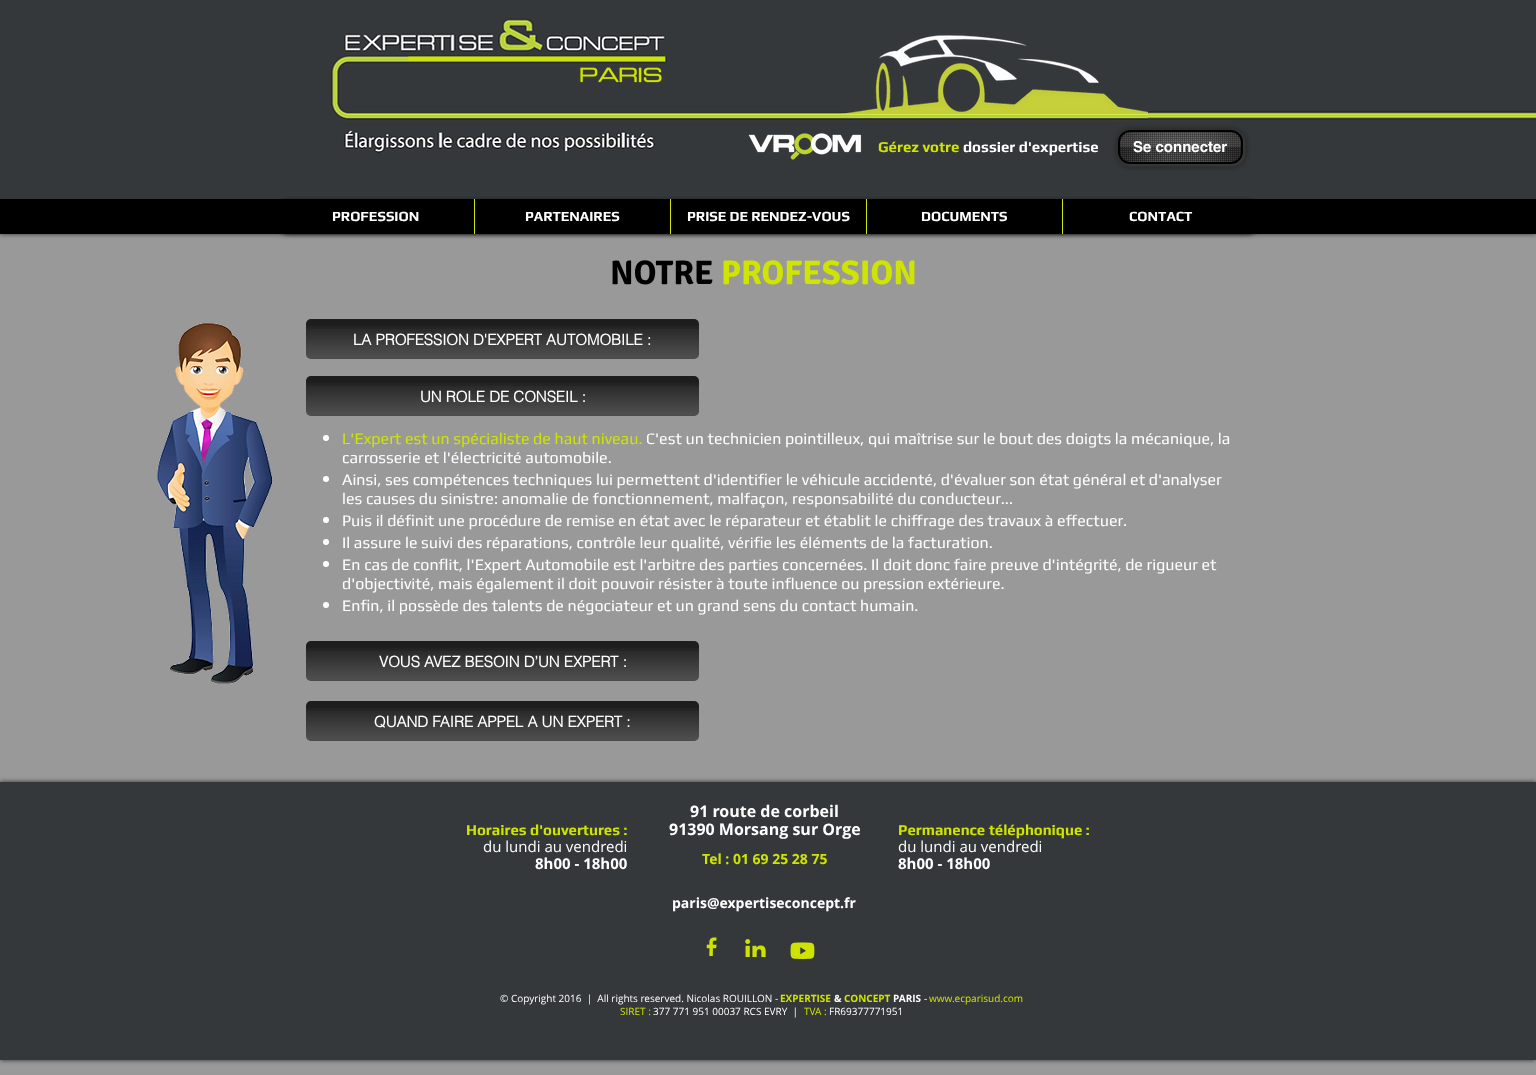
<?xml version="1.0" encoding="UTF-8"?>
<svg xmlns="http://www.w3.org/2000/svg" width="1536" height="1075">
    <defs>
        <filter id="blur1" x="-50%" y="-200%" width="200%" height="500%"><feGaussianBlur stdDeviation="2.5"/></filter>
        <filter id="blur2" x="-50%" y="-200%" width="200%" height="500%"><feGaussianBlur stdDeviation="1.5"/></filter>
        <filter id="blur3" x="-50%" y="-200%" width="200%" height="500%"><feGaussianBlur stdDeviation="3"/></filter>
        <clipPath id="clip1"><path d="M 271 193 H 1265 V 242 H 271 Z M 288 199 H 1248 C 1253.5 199 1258 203.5 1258 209 V 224 C 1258 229.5 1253.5 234 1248 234 H 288 C 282.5 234 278 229.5 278 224 V 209 C 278 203.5 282.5 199 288 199 Z" clip-rule="evenodd"/></clipPath>
        <filter id="blur4" x="-50%" y="-200%" width="200%" height="500%"><feGaussianBlur stdDeviation="2"/></filter>
    </defs>
    <rect width="100%" height="100%" fill="#999999"/>
    <rect x="0" y="0" width="1536" height="234" fill="#000000" fill-opacity="0.7" filter="url(#blur1)"/>
    <rect x="0" y="0" width="1536" height="199" fill="#35383A"/>
    <image x="331" y="18" width="906" height="135" href="img_01.png"/>
    <image x="408" y="56" width="257" height="27" href="img_02.png"/>
    <image x="841" y="33" width="307" height="81" href="img_03.png"/>
    <image x="1148" y="111" width="388" height="9" href="img_04.png"/>
    <image x="748" y="133" width="114" height="27" href="img_05.png"/>
    <text x="878" y="152" font-family="Play" font-size="15" font-weight="700" fill="#CFE400">Gérez votre</text>
    <text x="963" y="152" font-family="Play" font-size="15" font-weight="700" fill="#FFFFFF">dossier d'expertise</text>
    <rect x="1119" y="131" width="125" height="34" rx="12" fill="#FFFFFF" fill-opacity="0.3" filter="url(#blur2)"/>
    <rect x="1118" y="130" width="127" height="36" rx="13" fill="#000000" fill-opacity="0.6" filter="url(#blur3)"/>
    <rect x="1118" y="130" width="125" height="34" rx="12" fill="#5F5F5F"/>
    <image x="1118" y="130" width="125" height="34" href="img_06.png"/>
    <rect x="1119" y="131" width="123" height="32" rx="11" fill="none" stroke="#000000" stroke-width="2"/>
    <image x="1120" y="132" width="42" height="30" href="img_07.png"/>
    <image x="1199" y="132" width="42" height="30" href="img_09.png"/>
    <text x="1133" y="152" font-family="'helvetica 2'" font-size="15" font-weight="700" fill="#FFFFFF">Se connecter</text>
    <image x="1120" y="132" width="121" height="15" href="img_08.png"/>
    <rect x="0" y="199" width="1536" height="35" fill="#000000"/>
    <g clip-path="url(#clip1)">
        <rect x="278" y="200" width="980" height="35" rx="10" fill="#000000" fill-opacity="0.6" filter="url(#blur4)"/>
    </g>
    <text x="332" y="221" font-family="Play" font-size="14" font-weight="700" fill="#FFFFFF">PROFESSION</text>
    <rect x="474" y="199" width="1" height="35" fill="#CFE400"/>
    <text x="525" y="221" font-family="Play" font-size="14" font-weight="700" fill="#FFFFFF">PARTENAIRES</text>
    <rect x="670" y="199" width="1" height="35" fill="#CFE400"/>
    <text x="687" y="221" font-family="Play" font-size="14" font-weight="700" fill="#FFFFFF">PRISE DE RENDEZ-VOUS</text>
    <rect x="866" y="199" width="1" height="35" fill="#CFE400"/>
    <text x="921" y="221" font-family="Play" font-size="14" font-weight="700" fill="#FFFFFF">DOCUMENTS</text>
    <rect x="1062" y="199" width="1" height="35" fill="#CFE400"/>
    <text x="1129" y="221" font-family="Play" font-size="14" font-weight="700" fill="#FFFFFF">CONTACT</text>
    <text x="610" y="284" font-family="Signika" font-size="34" font-weight="700" fill="#000000">NOTRE</text>
    <text x="721" y="284" font-family="Signika" font-size="34" font-weight="700" fill="#CFE400">PROFESSION</text>
    <image x="157" y="322" width="116" height="362" href="img_10.png"/>
    <rect x="306" y="319" width="393" height="40" rx="5" fill="#232323"/>
    <image x="306" y="319" width="393" height="10" href="img_11.png"/>
    <image x="306" y="326" width="393" height="33" href="img_12.png"/>
    <text x="353" y="345" font-family="helvetica" font-size="15" font-weight="700" fill="#FFFFFF">LA PROFESSION D'EXPERT AUTOMOBILE :</text>
    <rect x="306" y="376" width="393" height="40" rx="5" fill="#232323"/>
    <image x="306" y="376" width="393" height="10" href="img_11.png"/>
    <image x="306" y="383" width="393" height="33" href="img_12.png"/>
    <text x="420" y="402" font-family="helvetica" font-size="15" font-weight="700" fill="#FFFFFF">UN ROLE DE CONSEIL :</text>
    <circle cx="326" cy="438" r="3" fill="#FFFFFF"/>
    <text x="342" y="444" font-family="Play" font-size="16" fill="#CFE400">L'Expert est un spécialiste de haut niveau.</text>
    <text x="646" y="444" font-family="Play" font-size="16" fill="#FFFFFF">C'est un technicien pointilleux, qui maîtrise sur le bout des doigts la mécanique, la</text>
    <text x="342" y="463" font-family="Play" font-size="16" fill="#FFFFFF">carrosserie et l'électricité automobile.</text>
    <circle cx="326" cy="479" r="3" fill="#FFFFFF"/>
    <text font-family="Play" font-size="16" fill="#FFFFFF">
        <tspan x="342" y="485">Ainsi, ses compétences techniques lui permettent d'identifier le véhicule accidenté, d'évaluer son état général et d'analyser</tspan>
        <tspan x="342" y="504">les causes du sinistre: anomalie de fonctionnement, malfaçon, responsabilité du conducteur...</tspan>
    </text>
    <circle cx="326" cy="520" r="3" fill="#FFFFFF"/>
    <text x="342" y="526" font-family="Play" font-size="16" fill="#FFFFFF">Puis il définit une procédure de remise en état avec le réparateur et établit le chiffrage des travaux à effectuer.</text>
    <circle cx="326" cy="542" r="3" fill="#FFFFFF"/>
    <text x="342" y="548" font-family="Play" font-size="16" fill="#FFFFFF">Il assure le suivi des réparations, contrôle leur qualité, vérifie les éléments de la facturation.</text>
    <circle cx="326" cy="564" r="3" fill="#FFFFFF"/>
    <text font-family="Play" font-size="16" fill="#FFFFFF">
        <tspan x="342" y="570">En cas de conflit, l'Expert Automobile est l'arbitre des parties concernées. Il doit donc faire preuve d'intégrité, de rigueur et</tspan>
        <tspan x="342" y="589">d'objectivité, mais également il doit pouvoir résister à toute influence ou pression extérieure.</tspan>
    </text>
    <circle cx="326" cy="605" r="3" fill="#FFFFFF"/>
    <text x="342" y="611" font-family="Play" font-size="16" fill="#FFFFFF">Enfin, il possède des talents de négociateur et un grand sens du contact humain.</text>
    <rect x="306" y="641" width="393" height="40" rx="5" fill="#232323"/>
    <image x="306" y="641" width="393" height="10" href="img_11.png"/>
    <image x="306" y="648" width="393" height="33" href="img_12.png"/>
    <text x="379" y="667" font-family="helvetica" font-size="15" font-weight="700" fill="#FFFFFF">VOUS AVEZ BESOIN D’UN EXPERT :</text>
    <rect x="306" y="701" width="393" height="40" rx="5" fill="#232323"/>
    <image x="306" y="701" width="393" height="10" href="img_11.png"/>
    <image x="306" y="708" width="393" height="33" href="img_12.png"/>
    <text x="374" y="727" font-family="helvetica" font-size="15" font-weight="700" fill="#FFFFFF">QUAND FAIRE APPEL A UN EXPERT :</text>
    <rect x="0" y="782" width="1536" height="278" fill="#000000" fill-opacity="0.7" filter="url(#blur1)"/>
    <rect x="0" y="782" width="1536" height="278" fill="#35383A"/>
    <text x="466" y="835" font-family="Play" font-size="15" font-weight="700" fill="#CFE400">Horaires d'ouvertures :</text>
    <text x="483" y="852" font-family="Open Sans" font-size="15" fill="#FFFFFF">du lundi au vendredi</text>
    <text x="535" y="869" font-family="Open Sans" font-size="15" font-weight="700" fill="#FFFFFF">8h00 - 18h00</text>
    <text x="690" y="817" font-family="Open Sans" font-size="16" font-weight="700" fill="#FFFFFF">91 route de corbeil</text>
    <text x="669" y="835" font-family="Open Sans" font-size="16" font-weight="700" fill="#FFFFFF">91390 Morsang sur Orge</text>
    <text x="898" y="835" font-family="Play" font-size="15" font-weight="700" fill="#CFE400">Permanence téléphonique :</text>
    <text x="898" y="852" font-family="Open Sans" font-size="15" fill="#FFFFFF">du lundi au vendredi</text>
    <text x="898" y="869" font-family="Open Sans" font-size="15" font-weight="700" fill="#FFFFFF">8h00 - 18h00</text>
    <text x="702" y="864" font-family="Open Sans" font-size="14" font-weight="700" fill="#CFE400">Tel : 01 69 25 28 75</text>
    <text x="672" y="908" font-family="Open Sans" font-size="14" font-weight="700" fill="#FFFFFF">paris@expertiseconcept.fr</text>
    <image x="706" y="937" width="11" height="19" href="img_13.png"/>
    <image x="745" y="939" width="21" height="18" href="img_14.png"/>
    <image x="790" y="942" width="25" height="17" href="img_15.png"/>
    <text x="500" y="1002" font-family="Open Sans" font-size="10" fill="#FFFFFF" xml:space="preserve">© Copyright 2016  |  All rights reserved. Nicolas ROUILLON -</text>
    <text x="780" y="1002" font-family="Open Sans" font-size="10" font-weight="700" fill="#CFE400">EXPERTISE</text>
    <text x="834" y="1002" font-family="Open Sans" font-size="10" font-weight="700" fill="#FFFFFF">&amp;</text>
    <text x="844" y="1002" font-family="Open Sans" font-size="10" font-weight="700" fill="#CFE400">CONCEPT</text>
    <text x="893" y="1002" font-family="Open Sans" font-size="10" font-weight="700" fill="#FFFFFF">PARIS</text>
    <text x="924" y="1002" font-family="Open Sans" font-size="10" fill="#FFFFFF">-</text>
    <text x="929" y="1002" font-family="Open Sans" font-size="10" fill="#CFE400">www.ecparisud.com</text>
    <text x="620" y="1015" font-family="Open Sans" font-size="10" fill="#CFE400">SIRET :</text>
    <text x="653" y="1015" font-family="Open Sans" font-size="10" fill="#FFFFFF" xml:space="preserve">377 771 951 00037 RCS EVRY  |</text>
    <text x="804" y="1015" font-family="Open Sans" font-size="10" fill="#CFE400">TVA :</text>
    <text x="829" y="1015" font-family="Open Sans" font-size="10" fill="#FFFFFF">FR69377771951</text>
</svg>
